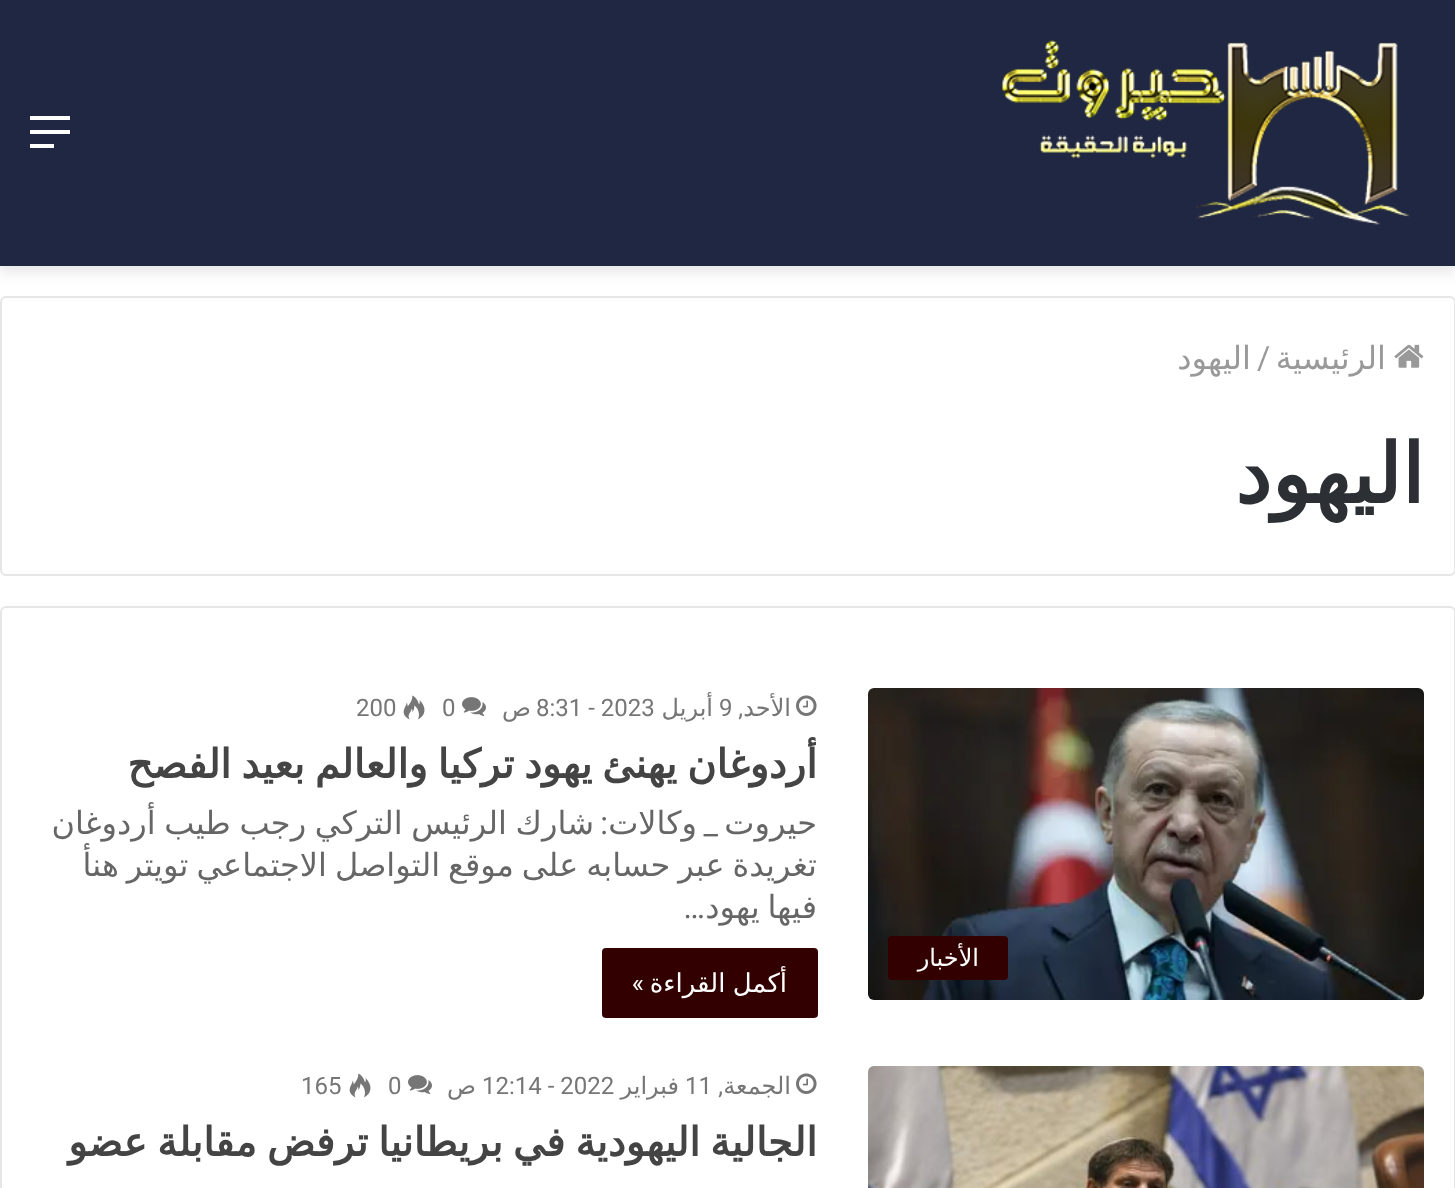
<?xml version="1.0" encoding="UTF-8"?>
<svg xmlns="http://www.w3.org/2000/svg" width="1455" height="1188">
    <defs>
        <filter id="blur1" x="-50%" y="-200%" width="200%" height="500%"><feGaussianBlur stdDeviation="7"/></filter>
    </defs>
    <rect width="100%" height="100%" fill="#FFFFFF"/>
    <rect x="0" y="6" width="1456" height="266" fill="#000000" fill-opacity="0.1" filter="url(#blur1)"/>
    <rect x="0" y="0" width="1455" height="266" fill="#202743"/>
    <image x="1001" y="40" width="409" height="185" href="img_01.png"/>
    <rect x="30" y="130" width="40" height="4" fill="#FFFFFF"/>
    <rect x="30" y="116" width="40" height="4" fill="#FFFFFF"/>
    <rect x="30" y="144" width="24" height="4" fill="#FFFFFF"/>
    <rect x="1" y="297" width="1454" height="278" rx="5" fill="none" stroke="#E6E6E6" stroke-width="2"/>
    <image x="1394" y="344" width="30" height="24" href="img_02.png"/>
    <text x="1386" y="369" font-family="DejaVu Sans" font-size="32" direction="rtl" fill="#999999">الرئيسية</text>
    <text x="1257" y="369" font-family="Roboto" font-size="32" fill="#999999">/</text>
    <text x="1251" y="369" font-family="DejaVu Sans" font-size="32" direction="rtl" fill="#999999">اليهود</text>
    <text x="1424" y="503" font-family="DejaVu Sans" font-size="82" font-weight="700" direction="rtl" fill="#2C2F34">اليهود</text>
    <rect x="1" y="607" width="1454" height="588" rx="5" fill="none" stroke="#E6E6E6" stroke-width="2"/>
    <image x="868" y="688" width="556" height="312" href="img_03.png"/>
    <rect x="888" y="936" width="120" height="44" rx="4" fill="#330000"/>
    <text x="979" y="966" font-family="DejaVu Sans" font-size="24" direction="rtl" fill="#FFFFFF">الأخبار</text>
    <image x="796" y="695" width="21" height="21" href="img_04.png"/>
    <text x="791" y="716" font-family="DejaVu Sans" font-size="24" direction="rtl" fill="#767676">الأحد</text>
    <text x="743" y="716" font-family="Roboto" font-size="24" direction="rtl" fill="#767676">,</text>
    <text x="719" y="716" font-family="Roboto" font-size="24" fill="#767676">9</text>
    <text x="713" y="716" font-family="DejaVu Sans" font-size="24" direction="rtl" fill="#767676">أبريل</text>
    <text x="536" y="716" font-family="Roboto" font-size="24" fill="#767676">8:31 - 2023</text>
    <text x="531" y="716" font-family="DejaVu Sans" font-size="24" direction="rtl" fill="#767676">ص</text>
    <image x="462" y="697" width="24" height="19" href="img_05.png"/>
    <text x="442" y="716" font-family="Roboto" font-size="24" fill="#767676">0</text>
    <image x="403" y="695" width="22" height="25" href="img_06.png"/>
    <text x="356" y="716" font-family="Roboto" font-size="24" fill="#767676">200</text>
    <text x="817" y="778" word-spacing="-2.75" font-family="DejaVu Sans" font-size="40" font-weight="700" direction="rtl" fill="#444444">أردوغان يهنئ يهود تركيا والعالم بعيد الفصح</text>
    <text x="817" y="834" font-family="DejaVu Sans" font-size="32" direction="rtl" fill="#666666">حيروت</text>
    <text x="718" y="834" font-family="Roboto" font-size="32" direction="rtl" fill="#666666">_</text>
    <text x="697" y="834" font-family="DejaVu Sans" font-size="32" direction="rtl" fill="#666666">وكالات</text>
    <text x="608" y="834" font-family="Roboto" font-size="32" direction="rtl" fill="#666666">:</text>
    <text x="594" y="834" word-spacing="-1.5" font-family="DejaVu Sans" font-size="32" direction="rtl" fill="#666666">شارك الرئيس التركي رجب طيب أردوغان</text>
    <text font-family="DejaVu Sans" font-size="32" direction="rtl" fill="#666666">
        <tspan x="817" y="876" word-spacing="-2.25">تغريدة عبر حسابه على موقع التواصل الاجتماعي تويتر هنأ</tspan>
        <tspan x="817" y="918" word-spacing="-2.25">فيها يهود</tspan>
    </text>
    <text x="705" y="918" font-family="Roboto" font-size="32" direction="rtl" fill="#666666">…</text>
    <rect x="602" y="948" width="216" height="70" rx="4" fill="#330000"/>
    <text x="787" y="992" word-spacing="-1" font-family="DejaVu Sans" font-size="26" direction="rtl" fill="#FFFFFF">أكمل القراءة</text>
    <text x="644" y="992" font-family="Roboto" font-size="26" direction="rtl" fill="#FFFFFF">»</text>
    <image x="868" y="1066" width="556" height="122" href="img_07.png"/>
    <image x="796" y="1073" width="21" height="21" href="img_04.png"/>
    <text x="791" y="1094" font-family="DejaVu Sans" font-size="24" direction="rtl" fill="#767676">الجمعة</text>
    <text x="723" y="1094" font-family="Roboto" font-size="24" direction="rtl" fill="#767676">,</text>
    <text x="685" y="1094" font-family="Roboto" font-size="24" fill="#767676">11</text>
    <text x="679" y="1094" font-family="DejaVu Sans" font-size="24" direction="rtl" fill="#767676">فبراير</text>
    <text x="482" y="1094" font-family="Roboto" font-size="24" fill="#767676">12:14 - 2022</text>
    <text x="476" y="1094" font-family="DejaVu Sans" font-size="24" direction="rtl" fill="#767676">ص</text>
    <image x="408" y="1075" width="24" height="19" href="img_05.png"/>
    <text x="388" y="1094" font-family="Roboto" font-size="24" fill="#767676">0</text>
    <image x="349" y="1073" width="22" height="25" href="img_06.png"/>
    <text x="301" y="1094" font-family="Roboto" font-size="24" fill="#767676">165</text>
    <text x="817" y="1156" word-spacing="-2.75" font-family="DejaVu Sans" font-size="40" font-weight="700" direction="rtl" fill="#444444">الجالية اليهودية في بريطانيا ترفض مقابلة عضو</text>
</svg>
